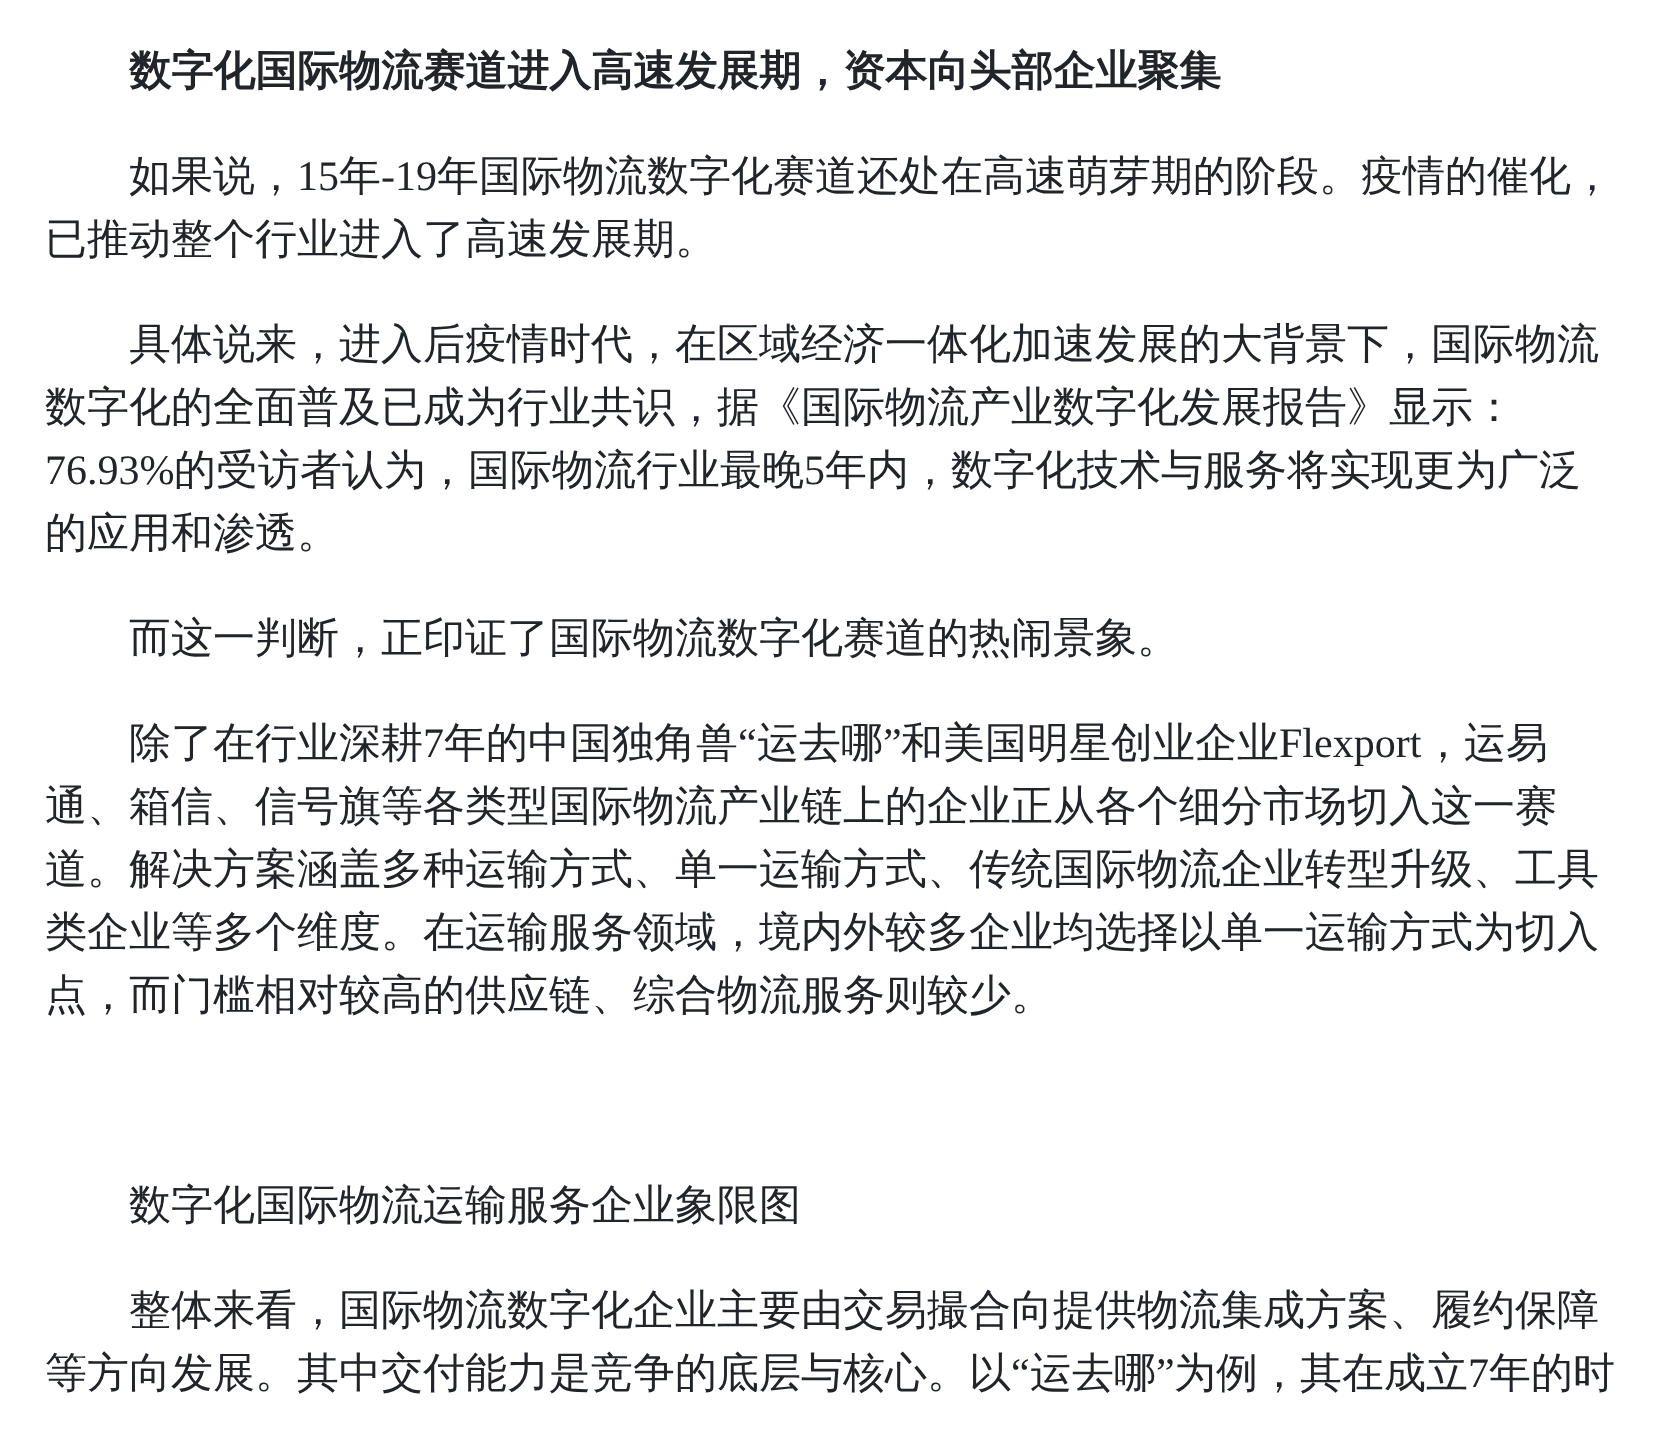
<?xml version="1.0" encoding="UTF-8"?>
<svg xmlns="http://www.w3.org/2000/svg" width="1660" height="1430">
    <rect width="100%" height="100%" fill="#FFFFFF"/>
    <text x="129" y="85" font-family="WenQuanYi Zen Hei" font-size="42" font-weight="700" fill="#212529">数字化国际物流赛道进入高速发展期，资本向头部企业聚集</text>
    <text x="129" y="190" font-family="WenQuanYi Zen Hei" font-size="42" font-weight="500" fill="#212529">如果说，</text>
    <text x="297" y="190" font-family="Liberation Serif" font-size="42" fill="#212529">15</text>
    <text x="339" y="190" font-family="WenQuanYi Zen Hei" font-size="42" font-weight="500" fill="#212529">年</text>
    <text x="381" y="190" font-family="Liberation Serif" font-size="42" fill="#212529">-19</text>
    <text x="437" y="190" font-family="WenQuanYi Zen Hei" font-size="42" font-weight="500" fill="#212529">年国际物流数字化赛道还处在高速萌芽期的阶段。疫情的催化，</text>
    <text x="45" y="253" font-family="WenQuanYi Zen Hei" font-size="42" font-weight="500" fill="#212529">已推动整个行业进入了高速发展期。</text>
    <text x="129" y="358" font-family="WenQuanYi Zen Hei" font-size="42" font-weight="500" fill="#212529">具体说来，进入后疫情时代，在区域经济一体化加速发展的大背景下，国际物流</text>
    <text x="45" y="421" font-family="WenQuanYi Zen Hei" font-size="42" font-weight="500" fill="#212529">数字化的全面普及已成为行业共识，据《国际物流产业数字化发展报告》显示：</text>
    <text x="45" y="484" font-family="Liberation Serif" font-size="42" fill="#212529">76.93%</text>
    <text x="174" y="484" font-family="WenQuanYi Zen Hei" font-size="42" font-weight="500" fill="#212529">的受访者认为，国际物流行业最晚</text>
    <text x="804" y="484" font-family="Liberation Serif" font-size="42" fill="#212529">5</text>
    <text x="825" y="484" font-family="WenQuanYi Zen Hei" font-size="42" font-weight="500" fill="#212529">年内，数字化技术与服务将实现更为广泛</text>
    <text x="45" y="547" font-family="WenQuanYi Zen Hei" font-size="42" font-weight="500" fill="#212529">的应用和渗透。</text>
    <text x="129" y="652" font-family="WenQuanYi Zen Hei" font-size="42" font-weight="500" fill="#212529">而这一判断，正印证了国际物流数字化赛道的热闹景象。</text>
    <text x="129" y="757" font-family="WenQuanYi Zen Hei" font-size="42" font-weight="500" fill="#212529">除了在行业深耕</text>
    <text x="423" y="757" font-family="Liberation Serif" font-size="42" fill="#212529">7</text>
    <text x="444" y="757" font-family="WenQuanYi Zen Hei" font-size="42" font-weight="500" fill="#212529">年的中国独角兽</text>
    <text x="738" y="757" font-family="Liberation Serif" font-size="42" fill="#212529">“</text>
    <text x="757" y="757" font-family="WenQuanYi Zen Hei" font-size="42" font-weight="500" fill="#212529">运去哪</text>
    <text x="883" y="757" font-family="Liberation Serif" font-size="42" fill="#212529">”</text>
    <text x="901" y="757" font-family="WenQuanYi Zen Hei" font-size="42" font-weight="500" fill="#212529">和美国明星创业企业</text>
    <text x="1279" y="757" font-family="Liberation Serif" font-size="42" fill="#212529">Flexport</text>
    <text x="1422" y="757" font-family="WenQuanYi Zen Hei" font-size="42" font-weight="500" fill="#212529">，运易</text>
    <text font-family="WenQuanYi Zen Hei" font-size="42" font-weight="500" fill="#212529">
        <tspan x="45" y="820">通、箱信、信号旗等各类型国际物流产业链上的企业正从各个细分市场切入这一赛</tspan>
        <tspan x="45" y="883">道。解决方案涵盖多种运输方式、单一运输方式、传统国际物流企业转型升级、工具</tspan>
        <tspan x="45" y="946">类企业等多个维度。在运输服务领域，境内外较多企业均选择以单一运输方式为切入</tspan>
        <tspan x="45" y="1009">点，而门槛相对较高的供应链、综合物流服务则较少。</tspan>
    </text>
    <text x="129" y="1219" font-family="WenQuanYi Zen Hei" font-size="42" font-weight="500" fill="#212529">数字化国际物流运输服务企业象限图</text>
    <text x="129" y="1324" font-family="WenQuanYi Zen Hei" font-size="42" font-weight="500" fill="#212529">整体来看，国际物流数字化企业主要由交易撮合向提供物流集成方案、履约保障</text>
    <text x="45" y="1387" font-family="WenQuanYi Zen Hei" font-size="42" font-weight="500" fill="#212529">等方向发展。其中交付能力是竞争的底层与核心。以</text>
    <text x="1011" y="1387" font-family="Liberation Serif" font-size="42" fill="#212529">“</text>
    <text x="1030" y="1387" font-family="WenQuanYi Zen Hei" font-size="42" font-weight="500" fill="#212529">运去哪</text>
    <text x="1156" y="1387" font-family="Liberation Serif" font-size="42" fill="#212529">”</text>
    <text x="1174" y="1387" font-family="WenQuanYi Zen Hei" font-size="42" font-weight="500" fill="#212529">为例，其在成立</text>
    <text x="1468" y="1387" font-family="Liberation Serif" font-size="42" fill="#212529">7</text>
    <text x="1489" y="1387" font-family="WenQuanYi Zen Hei" font-size="42" font-weight="500" fill="#212529">年的时</text>
</svg>
